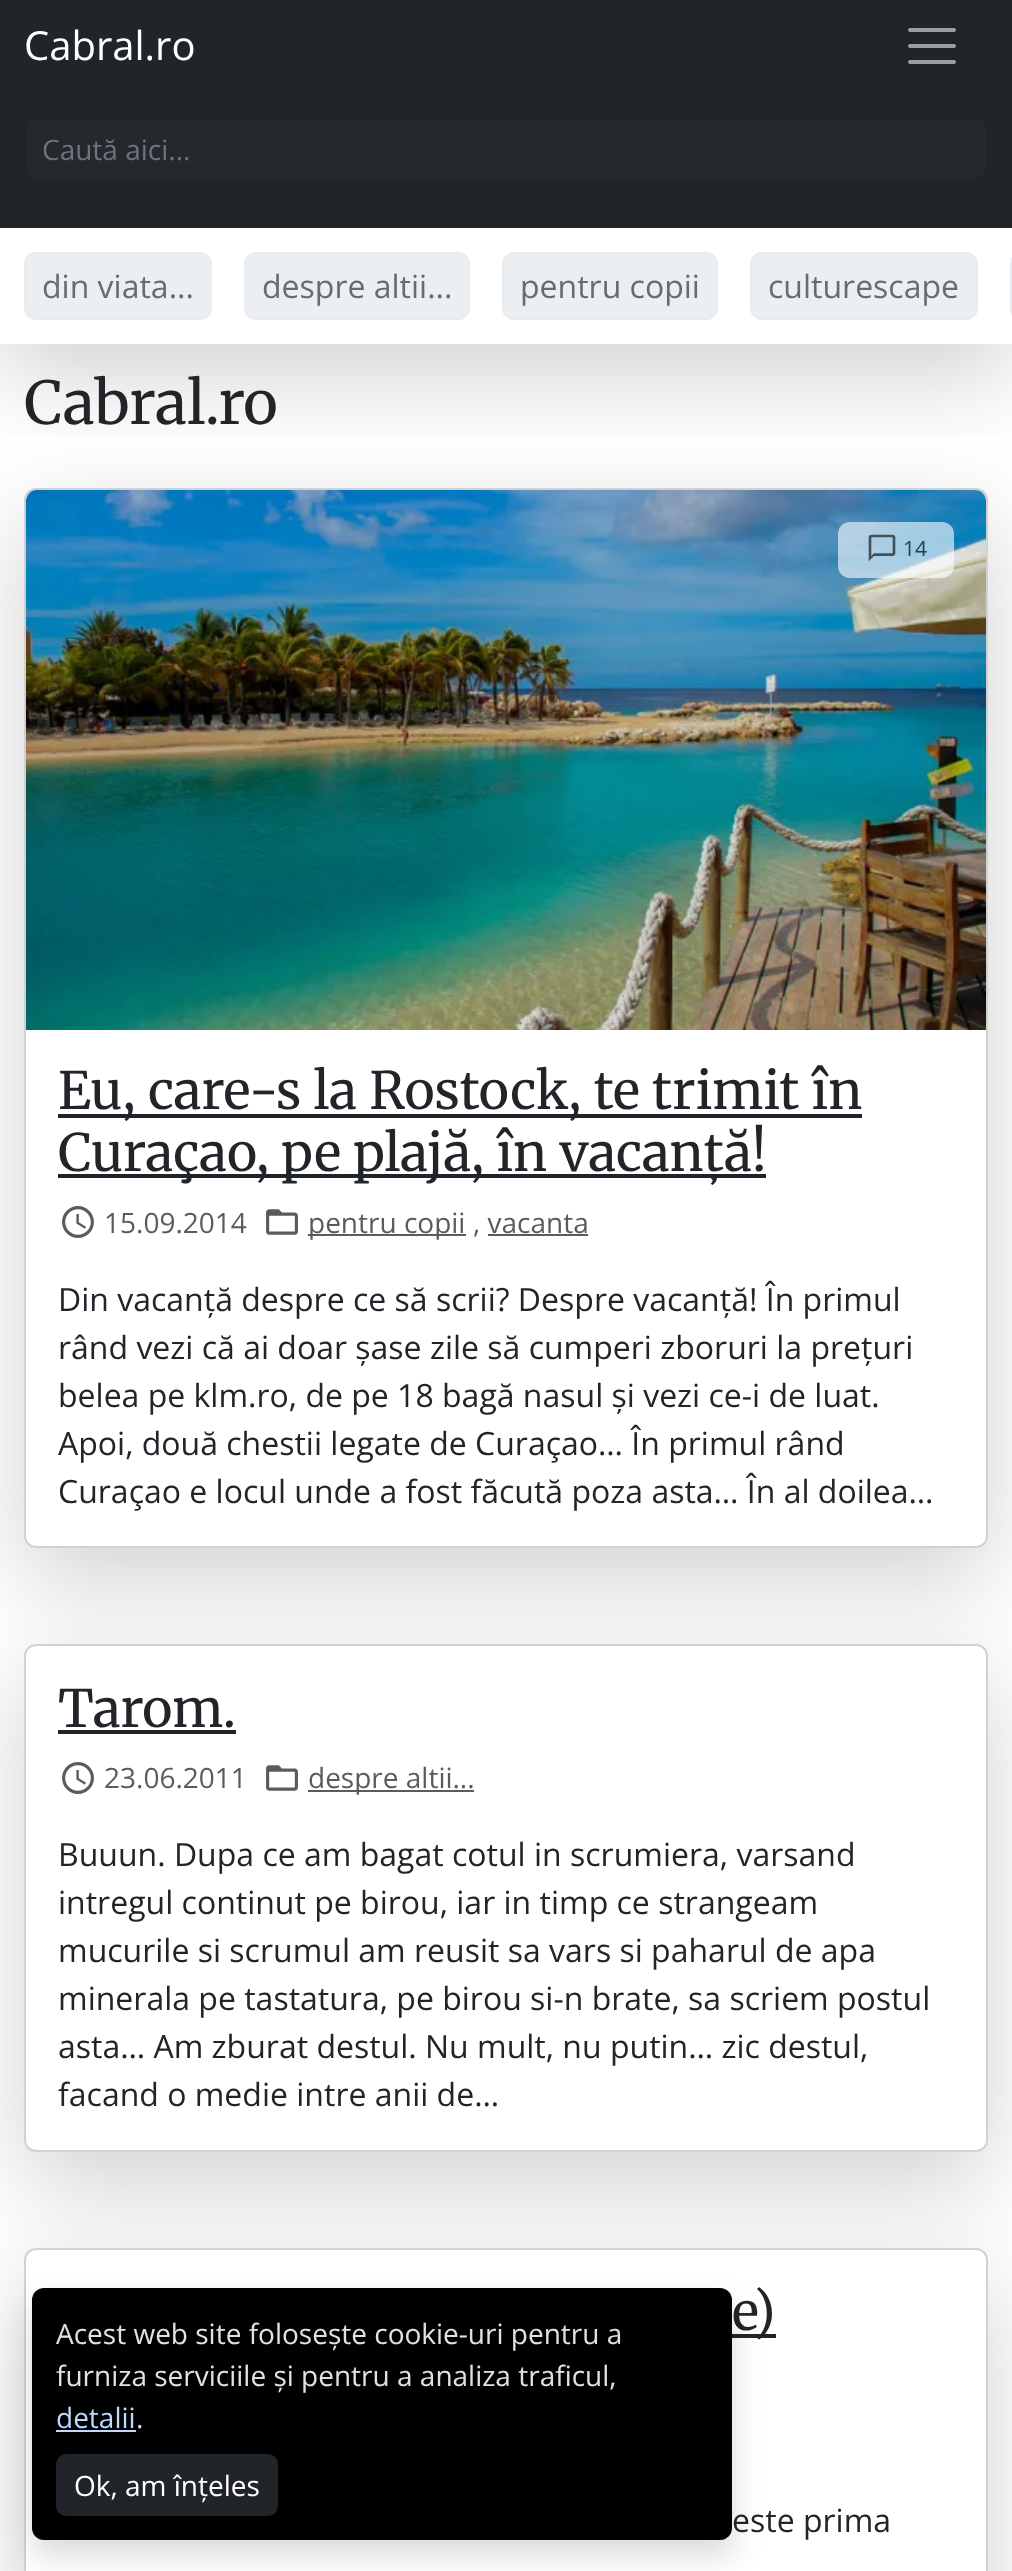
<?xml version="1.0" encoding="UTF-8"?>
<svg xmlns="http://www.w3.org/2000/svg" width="1012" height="2571">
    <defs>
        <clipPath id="clip1"><rect x="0" y="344" width="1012" height="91"/></clipPath>
        <filter id="blur1" x="-50%" y="-200%" width="200%" height="500%"><feGaussianBlur stdDeviation="48"/></filter>
        <filter id="blur2" x="-50%" y="-200%" width="200%" height="500%"><feGaussianBlur stdDeviation="16"/></filter>
    </defs>
    <rect width="100%" height="100%" fill="#FFFFFF"/>
    <g clip-path="url(#clip1)">
        <rect x="0" y="22" width="1012" height="354" fill="#000000" fill-opacity="0.18" filter="url(#blur1)"/>
    </g>
    <rect x="0" y="0" width="1012" height="228" fill="#212529"/>
    <text x="24" y="60" font-family="Open Sans" font-size="40" fill="#FFFFFF">Cabral.ro</text>
    <path d="M 910 30 H 954 M 910 46 H 954 M 910 62 H 954" fill="none" stroke="#9B9D9F" stroke-width="4" stroke-linecap="round"/>
    <rect x="26" y="120" width="960" height="58" rx="8" fill="#25292D"/>
    <text x="42" y="160" font-family="Open Sans" font-size="28" fill="#6C757D">Caută aici...</text>
    <rect x="25" y="253" width="186" height="66" rx="11" fill="#ECEFF2" stroke="#E9ECEF" stroke-width="2"/>
    <text x="42" y="298" font-family="Open Sans" font-size="32" fill="#686C6F">din viata...</text>
    <rect x="245" y="253" width="224" height="66" rx="11" fill="#ECEFF2" stroke="#E9ECEF" stroke-width="2"/>
    <text x="262" y="298" font-family="Open Sans" font-size="32" fill="#686C6F">despre altii...</text>
    <rect x="503" y="253" width="214" height="66" rx="11" fill="#ECEFF2" stroke="#E9ECEF" stroke-width="2"/>
    <text x="520" y="298" font-family="Open Sans" font-size="32" fill="#686C6F">pentru copii</text>
    <rect x="751" y="253" width="226" height="66" rx="11" fill="#ECEFF2" stroke="#E9ECEF" stroke-width="2"/>
    <text x="768" y="298" font-family="Open Sans" font-size="32" fill="#686C6F">culturescape</text>
    <rect x="1011" y="253" width="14" height="66" rx="11" fill="none" stroke="#E9ECEF" stroke-width="2"/>
    <text x="24" y="424" font-family="Merriweather" font-size="59" fill="#212529">Cabral.ro</text>
    <rect x="24" y="520" width="964" height="1060" rx="12" fill="#000000" fill-opacity="0.18" filter="url(#blur1)"/>
    <rect x="24" y="488" width="964" height="1060" rx="12" fill="#FFFFFF"/>
    <rect x="25" y="489" width="962" height="1058" rx="11" fill="none" stroke="#000000" stroke-opacity="0.18" stroke-width="2"/>
    <image x="26" y="490" width="960" height="540" href="img_01.png"/>
    <rect x="838" y="522" width="116" height="56" rx="12" fill="#FFFFFF" fill-opacity="0.6"/>
    <image x="868" y="534" width="28" height="28" href="img_02.png"/>
    <text x="903" y="556" font-family="Open Sans" font-size="21" fill="#343A40">14</text>
    <rect x="58" y="1114" width="804" height="4" fill="#212529"/>
    <text x="58" y="1109" font-family="Merriweather" font-size="51.5" fill="#212529">Eu, care-s la Rostock, te trimit în</text>
    <rect x="58" y="1174" width="708" height="4" fill="#212529"/>
    <text x="58" y="1171" font-family="Merriweather" font-size="51.5" fill="#212529">Curaçao, pe plajă, în vacanță!</text>
    <image x="62" y="1206" width="32" height="32" href="img_03.png"/>
    <text x="104" y="1233" font-family="Open Sans" font-size="28" fill="#595C5F">15.09.2014</text>
    <image x="266" y="1209" width="32" height="26" href="img_04.png"/>
    <rect x="308" y="1234" width="158" height="2" fill="#595C5F"/>
    <text x="308" y="1233" font-family="Open Sans" font-size="28" fill="#595C5F">pentru copii</text>
    <text x="473" y="1233" font-family="Open Sans" font-size="28" fill="#595C5F">, vacanta</text>
    <rect x="488" y="1234" width="100" height="2" fill="#595C5F"/>
    <text font-family="Open Sans" font-size="32" fill="#212529">
        <tspan x="58" y="1311">Din vacanță despre ce să scrii? Despre vacanță! În primul</tspan>
        <tspan x="58" y="1359">rând vezi că ai doar șase zile să cumperi zboruri la prețuri</tspan>
        <tspan x="58" y="1407">belea pe klm.ro, de pe 18 bagă nasul și vezi ce-i de luat.</tspan>
        <tspan x="58" y="1455">Apoi, două chestii legate de Curaçao… În primul rând</tspan>
        <tspan x="58" y="1503">Curaçao e locul unde a fost făcută poza asta… În al doilea…</tspan>
    </text>
    <rect x="24" y="1676" width="964" height="508" rx="12" fill="#000000" fill-opacity="0.18" filter="url(#blur1)"/>
    <rect x="24" y="1644" width="964" height="508" rx="12" fill="#FFFFFF"/>
    <rect x="25" y="1645" width="962" height="506" rx="11" fill="none" stroke="#000000" stroke-opacity="0.18" stroke-width="2"/>
    <text x="58" y="1727" font-family="Merriweather" font-size="51.5" fill="#212529">Tarom.</text>
    <rect x="58" y="1730" width="178" height="4" fill="#212529"/>
    <image x="62" y="1762" width="32" height="32" href="img_05.png"/>
    <text x="104" y="1788" font-family="Open Sans" font-size="28" fill="#595C5F">23.06.2011</text>
    <image x="266" y="1765" width="32" height="26" href="img_06.png"/>
    <rect x="308" y="1790" width="166" height="2" fill="#595C5F"/>
    <text x="308" y="1788" font-family="Open Sans" font-size="28" fill="#595C5F">despre altii...</text>
    <text font-family="Open Sans" font-size="32" fill="#212529">
        <tspan x="58" y="1866">Buuun. Dupa ce am bagat cotul in scrumiera, varsand</tspan>
        <tspan x="58" y="1914">intregul continut pe birou, iar in timp ce strangeam</tspan>
        <tspan x="58" y="1962">mucurile si scrumul am reusit sa vars si paharul de apa</tspan>
        <tspan x="58" y="2010">minerala pe tastatura, pe birou si-n brate, sa scriem postul</tspan>
        <tspan x="58" y="2058">asta… Am zburat destul. Nu mult, nu putin… zic destul,</tspan>
        <tspan x="58" y="2106">facand o medie intre anii de…</tspan>
    </text>
    <rect x="24" y="2280" width="964" height="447" rx="12" fill="#000000" fill-opacity="0.18" filter="url(#blur1)"/>
    <rect x="24" y="2248" width="964" height="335" rx="12" fill="#FFFFFF"/>
    <rect x="25" y="2249" width="962" height="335" rx="11" fill="none" stroke="#000000" stroke-opacity="0.18" stroke-width="2"/>
    <rect x="732" y="2334" width="44" height="4" fill="#212529"/>
    <text x="732" y="2330" font-family="Merriweather" font-size="51.5" fill="#212529">e)</text>
    <text x="732" y="2532" font-family="Open Sans" font-size="32" fill="#212529">este prima</text>
    <rect x="32" y="2304" width="700" height="252" rx="12" fill="#000000" fill-opacity="0.15" filter="url(#blur2)"/>
    <rect x="32" y="2288" width="700" height="252" rx="12" fill="#000000"/>
    <text font-family="Open Sans" font-size="28" fill="#DEE2E6">
        <tspan x="56" y="2344">Acest web site folosește cookie-uri pentru a</tspan>
        <tspan x="56" y="2386">furniza serviciile și pentru a analiza traficul,</tspan>
    </text>
    <text x="56" y="2428" font-family="Open Sans" font-size="28" fill="#BED8FE">detalii</text>
    <rect x="56" y="2430" width="80" height="2" fill="#BED8FE"/>
    <text x="136" y="2428" font-family="Open Sans" font-size="28" fill="#DEE2E6">.</text>
    <rect x="57" y="2455" width="220" height="60" rx="9" fill="#212529" stroke="#212529" stroke-width="2"/>
    <text x="74" y="2496" font-family="Open Sans" font-size="28" fill="#FFFFFF">Ok, am înțeles</text>
</svg>
